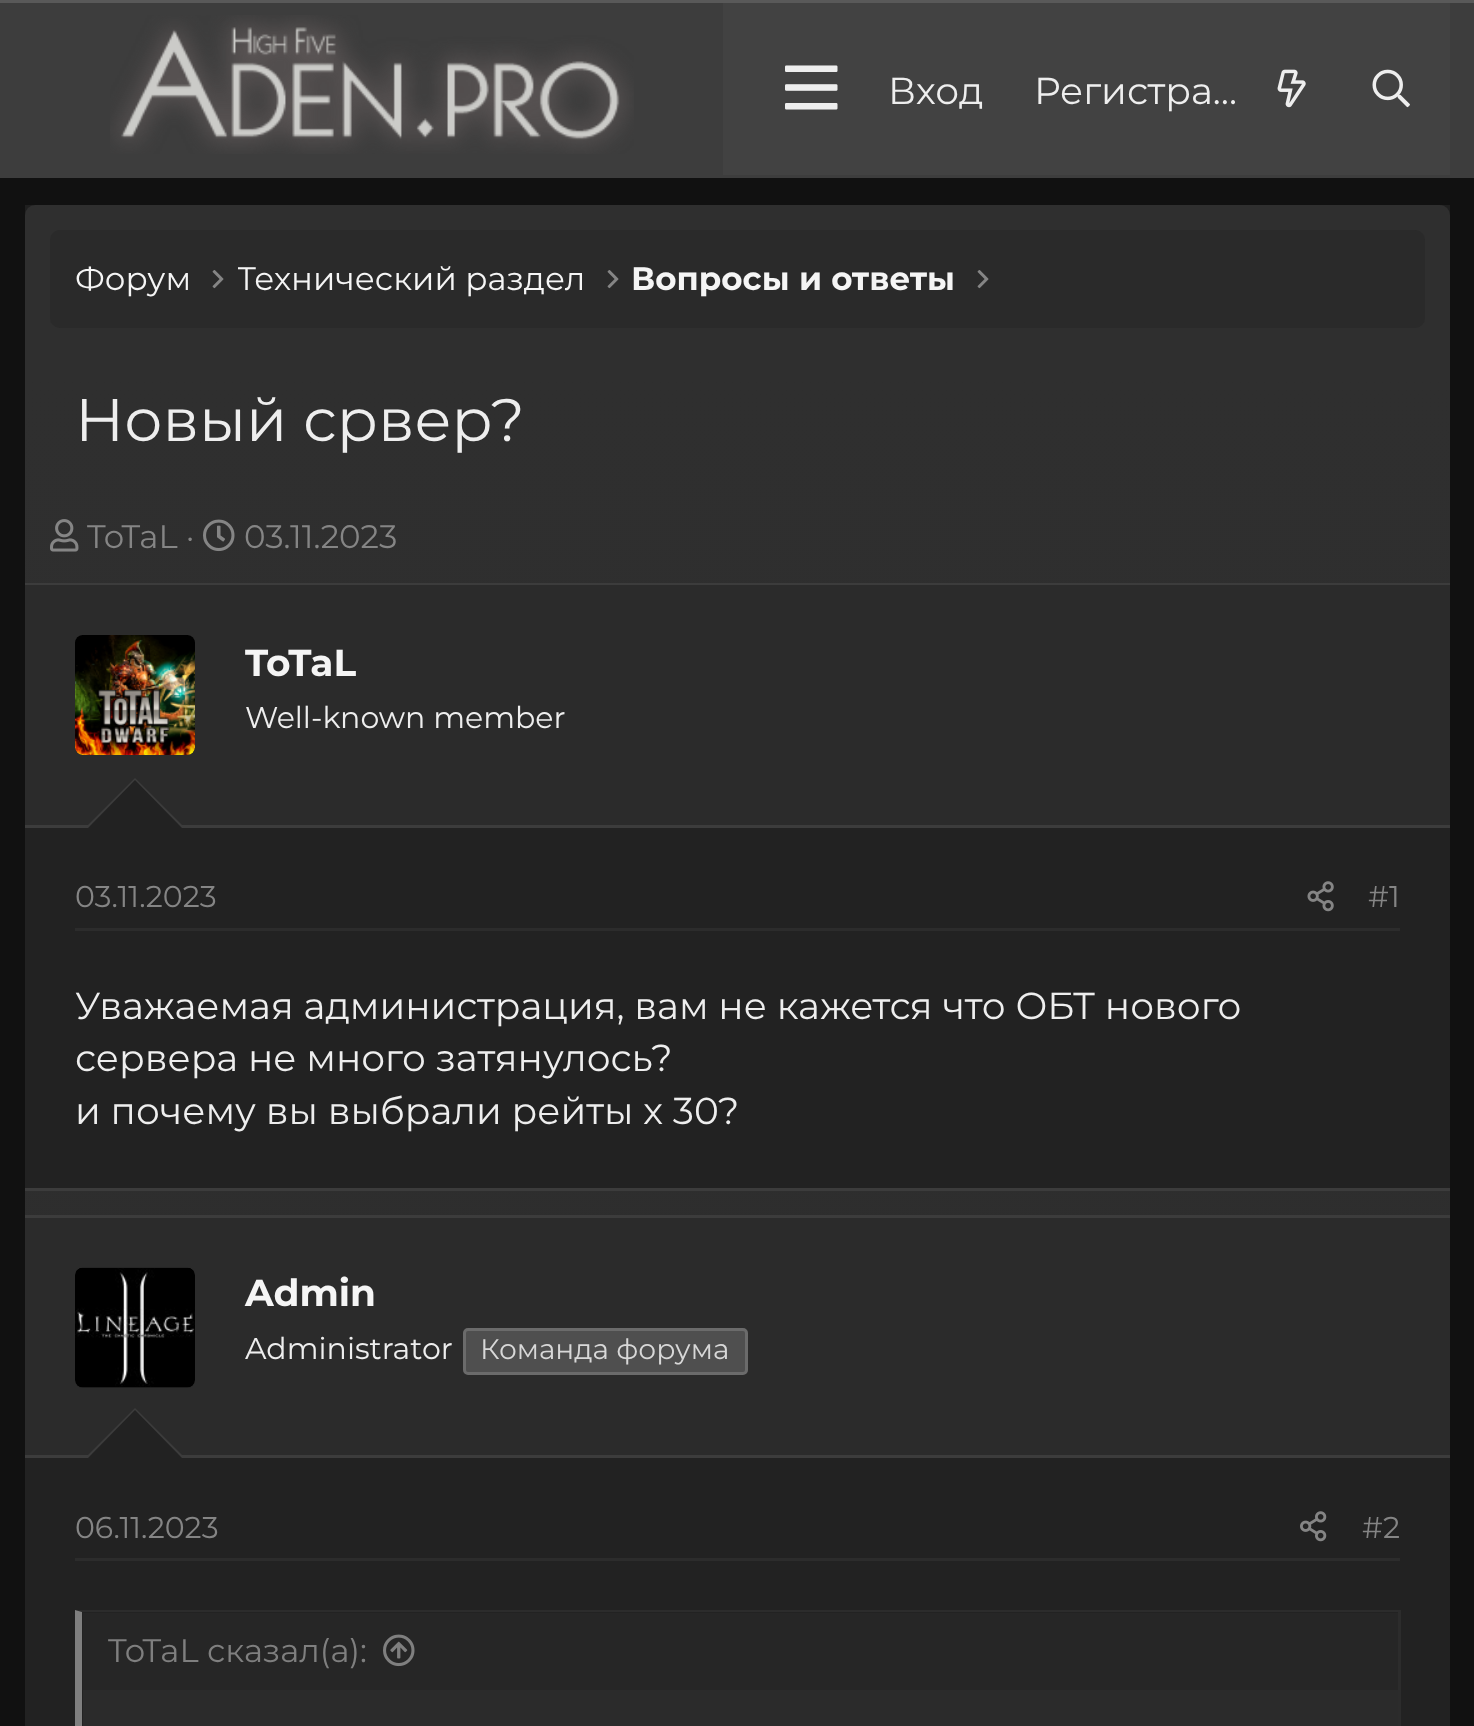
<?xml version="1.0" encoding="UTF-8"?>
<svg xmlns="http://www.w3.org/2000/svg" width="1474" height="1726">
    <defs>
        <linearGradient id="g1" gradientUnits="userSpaceOnUse" x1="25" y1="205" x2="25" y2="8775"><stop offset="0" stop-color="#FFFFFF" stop-opacity="0.06"/><stop offset="1" stop-color="#FFFFFF" stop-opacity="0"/></linearGradient>
        <clipPath id="clip1"><rect x="238" y="255" width="347" height="48"/></clipPath>
    </defs>
    <rect width="100%" height="100%" fill="#111111"/>
    <rect x="0" y="0" width="1474" height="3" fill="#595959"/>
    <rect x="0" y="3" width="1474" height="175" fill="#3D3D3D"/>
    <image x="110" y="15" width="524" height="139" href="img_01.png"/>
    <rect x="723" y="3" width="727" height="172" fill="#424242"/>
    <image x="785" y="65" width="53" height="45" href="img_02.png"/>
    <text x="888" y="104" font-family="Montserrat" font-size="37.5" fill="#EEEEEE">Вход</text>
    <text x="1034" y="104" font-family="Montserrat" font-size="37.5" fill="#EEEEEE">Регистра…</text>
    <image x="1277" y="69" width="29" height="39" href="img_03.png"/>
    <image x="1372" y="69" width="38" height="39" href="img_04.png"/>
    <rect x="25" y="205" width="1425" height="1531" rx="10" fill="#222222"/>
    <rect x="25" y="205" width="1425" height="1010" fill="url(#g1)"/>
    <rect x="50" y="230" width="1375" height="98" rx="10" fill="#2A2A2A"/>
    <text x="75" y="290" font-family="Montserrat" font-size="32.5" fill="#F5F5F5">Форум</text>
    <image x="212" y="270" width="12" height="19" href="img_05.png"/>
    <g clip-path="url(#clip1)">
        <text x="237" y="290" font-family="Montserrat" font-size="32.5" fill="#F5F5F5">Технический раздел</text>
    </g>
    <image x="607" y="270" width="12" height="19" href="img_05.png"/>
    <text x="631" y="290" font-family="Montserrat" font-size="32.5" font-weight="700" fill="#F5F5F5">Вопросы и ответы</text>
    <image x="977" y="270" width="12" height="19" href="img_05.png"/>
    <text x="75" y="441" font-family="Montserrat" font-size="60" fill="#EEEEEE">Новый срвер?</text>
    <image x="50" y="519" width="29" height="33" href="img_06.png"/>
    <text x="87" y="548" font-family="Montserrat" font-size="32.5" fill="#858585">ToTaL ·</text>
    <image x="203" y="519" width="32" height="33" href="img_07.png"/>
    <text x="244" y="548" font-family="Montserrat" font-size="32.5" fill="#858585">03.11.2023</text>
    <rect x="25" y="828" width="1425" height="360" fill="#222222"/>
    <rect x="25" y="583" width="1425" height="2" fill="#3C3C3C"/>
    <rect x="25" y="1188" width="1425" height="3" fill="#3C3C3C"/>
    <rect x="25" y="585" width="1425" height="240" fill="#2B2B2B"/>
    <rect x="25" y="825" width="1425" height="3" fill="#3C3C3C"/>
    <rect x="75" y="635" width="120" height="120" rx="8" fill="#222222"/>
    <image x="75" y="635" width="120" height="120" href="img_08.png"/>
    <text x="245" y="676" font-family="Montserrat" font-size="37.5" font-weight="700" fill="#F5F5F5">ToTaL</text>
    <text x="245" y="728" font-family="Montserrat" font-size="30" fill="#EEEEEE">Well-known member</text>
    <path d="M 185 828 H 85 L 135 778 Z" fill="#3C3C3C"/>
    <path d="M 182 828 H 88 L 135 780 Z" fill="#222222"/>
    <rect x="75" y="928" width="1325" height="3" fill="#2C2C2C"/>
    <text x="75" y="907" font-family="Montserrat" font-size="30" fill="#858585">03.11.2023</text>
    <image x="1307" y="881" width="27" height="31" href="img_09.png"/>
    <text x="1368" y="907" font-family="Montserrat" font-size="30" fill="#858585">#1</text>
    <text font-family="Montserrat" font-size="37.5" fill="#EEEEEE">
        <tspan x="75" y="1019">Уважаемая администрация, вам не кажется что ОБТ нового</tspan>
        <tspan x="75" y="1071">сервера не много затянулось?</tspan>
        <tspan x="75" y="1124">и почему вы выбрали рейты х 30?</tspan>
    </text>
    <rect x="25" y="1215" width="1425" height="3" fill="#3C3C3C"/>
    <rect x="25" y="1218" width="1425" height="237" fill="#2B2B2B"/>
    <rect x="25" y="1455" width="1425" height="3" fill="#3C3C3C"/>
    <rect x="75" y="1268" width="120" height="120" rx="8" fill="#222222"/>
    <image x="75" y="1267" width="120" height="121" href="img_10.png"/>
    <text x="245" y="1306" font-family="Montserrat" font-size="37.5" font-weight="700" fill="#F5F5F5">Admin</text>
    <text x="245" y="1359" font-family="Montserrat" font-size="30" fill="#EEEEEE">Administrator</text>
    <rect x="464.5" y="1329.5" width="282" height="44" rx="3.5" fill="#4F4F4F" stroke="#6B6B6B" stroke-width="3"/>
    <text x="480" y="1359" font-family="Montserrat" font-size="28.1" fill="#D8D8D8">Команда форума</text>
    <path d="M 185 1458 H 85 L 135 1408 Z" fill="#3C3C3C"/>
    <path d="M 182 1458 H 88 L 135 1410 Z" fill="#222222"/>
    <rect x="75" y="1558" width="1325" height="3" fill="#2C2C2C"/>
    <text x="75" y="1538" font-family="Montserrat" font-size="30" fill="#858585">06.11.2023</text>
    <image x="1300" y="1511" width="27" height="31" href="img_11.png"/>
    <text x="1362" y="1538" font-family="Montserrat" font-size="30" fill="#858585">#2</text>
    <rect x="83" y="1690" width="1315" height="36" fill="#2B2B2B"/>
    <path d="M 75 1610 H 1400 L 1398 1612 H 82 Z" fill="#2C2C2C"/>
    <rect x="1398" y="1610" width="3" height="116" fill="#2C2C2C"/>
    <path d="M 75 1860 V 1610 L 82 1612 V 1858 Z" fill="#7F7F7F"/>
    <rect x="83" y="1613" width="1315" height="77" fill="#262626"/>
    <text x="108" y="1662" font-family="Montserrat" font-size="32.5" fill="#7F7F7F">ToTaL сказал(а):</text>
    <image x="383" y="1634" width="32" height="33" href="img_12.png"/>
</svg>
